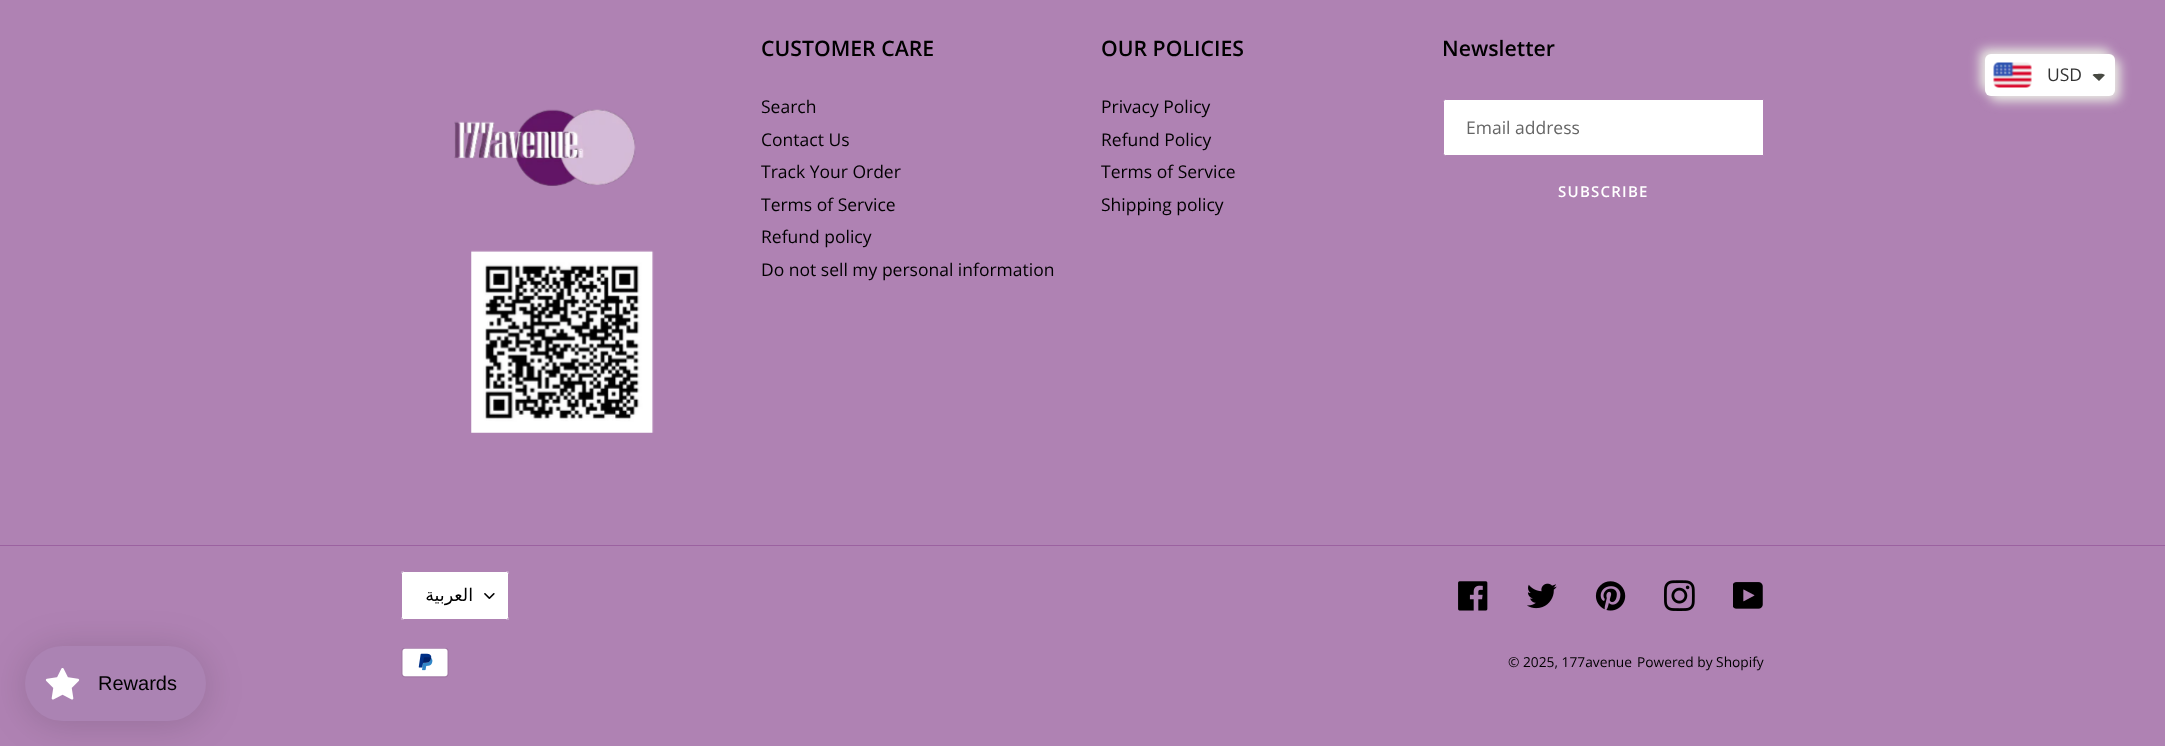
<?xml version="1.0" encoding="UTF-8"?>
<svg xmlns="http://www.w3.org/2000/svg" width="2165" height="746">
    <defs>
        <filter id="blur1" x="-50%" y="-200%" width="200%" height="500%"><feGaussianBlur stdDeviation="5.5"/></filter>
        <filter id="blur2" x="-50%" y="-200%" width="200%" height="500%"><feGaussianBlur stdDeviation="19"/></filter>
    </defs>
    <rect width="100%" height="100%" fill="#AF82B3"/>
    <image x="454" y="109" width="182" height="77" href="img_01.png"/>
    <image x="471" y="250" width="183" height="183" href="img_02.png"/>
    <text x="761" y="56" font-family="Open Sans" font-size="21.25" font-weight="600" fill="#000000">CUSTOMER CARE</text>
    <text font-family="Open Sans" font-size="17.5" fill="#000000">
        <tspan x="761" y="113">Search</tspan>
        <tspan x="761" y="146">Contact Us</tspan>
        <tspan x="761" y="178">Track Your Order</tspan>
        <tspan x="761" y="211">Terms of Service</tspan>
        <tspan x="761" y="243">Refund policy</tspan>
        <tspan x="761" y="276">Do not sell my personal information</tspan>
    </text>
    <text x="1101" y="56" font-family="Open Sans" font-size="21.25" font-weight="600" fill="#000000">OUR POLICIES</text>
    <text font-family="Open Sans" font-size="17.5" fill="#000000">
        <tspan x="1101" y="113">Privacy Policy</tspan>
        <tspan x="1101" y="146">Refund Policy</tspan>
        <tspan x="1101" y="178">Terms of Service</tspan>
        <tspan x="1101" y="211">Shipping policy</tspan>
    </text>
    <text x="1442" y="56" font-family="Open Sans" font-size="21.25" font-weight="600" fill="#000000">Newsletter</text>
    <path d="M 1445.5 99.5 H 1763.5 V 155.5 H 1445.5 C 1444.5 155.5 1443.5 154.5 1443.5 153.5 V 101.5 C 1443.5 100.5 1444.5 99.5 1445.5 99.5 Z" fill="#FFFFFF" stroke="#AF82B3"/>
    <text x="1466" y="134" font-family="Open Sans" font-size="17.5" fill="#666666">Email address</text>
    <text x="1558" y="197" font-family="Open Sans" font-size="15" font-weight="600" letter-spacing="1.25" fill="#FFFFFF">SUBSCRIBE</text>
    <rect x="0" y="545" width="2165" height="1" fill="#9B62A0"/>
    <rect x="401" y="571" width="108" height="49" rx="2.5" fill="#FFFFFF"/>
    <image x="484" y="593" width="11" height="6" href="img_03.png"/>
    <rect x="401.5" y="571.5" width="107" height="48" rx="2" fill="none" stroke="#AF82B3"/>
    <text x="473" y="601" font-family="DejaVu Sans" font-size="17.5" direction="rtl" fill="#000000">العربية</text>
    <image x="1458" y="581" width="30" height="30" href="img_04.png"/>
    <image x="1527" y="583" width="30" height="26" href="img_05.png"/>
    <image x="1595" y="581" width="31" height="30" href="img_06.png"/>
    <image x="1664" y="580" width="31" height="31" href="img_07.png"/>
    <image x="1733" y="582" width="30" height="27" href="img_08.png"/>
    <image x="401" y="648" width="48" height="30" href="img_09.png"/>
    <text x="1508" y="667" font-family="Open Sans" font-size="13.75" fill="#000000">© 2025, 177avenue</text>
    <text x="1637" y="667" font-family="Open Sans" font-size="13.75" fill="#000000">Powered by Shopify</text>
    <rect x="1980" y="49" width="130" height="42" rx="6" fill="#E8E8E2" filter="url(#blur1)"/>
    <rect x="1990" y="59" width="130" height="42" rx="6" fill="#E8E8E2" filter="url(#blur1)"/>
    <rect x="1985" y="54" width="130" height="42" rx="6" fill="#FFFFFF"/>
    <image x="1993" y="62" width="39" height="26" href="img_10.png"/>
    <text x="2047" y="81" font-family="Open Sans" font-size="17.5" fill="#333333">USD</text>
    <path d="M 2095 74 C 2097.5 74 2103 73 2105 75 L 2099 81 L 2092.5 75 C 2093 74.5 2094 74 2095 74 Z" fill="#474942"/>
    <rect x="25" y="649" width="181" height="75" rx="37.5" fill="#000000" fill-opacity="0.15" filter="url(#blur2)"/>
    <rect x="25" y="646" width="181" height="75" rx="37.5" fill="#AB83B3"/>
    <image x="45" y="668" width="35" height="32" href="img_11.png"/>
    <text x="98" y="690" font-family="Liberation Sans" font-size="20" fill="#000000">Rewards</text>
</svg>
